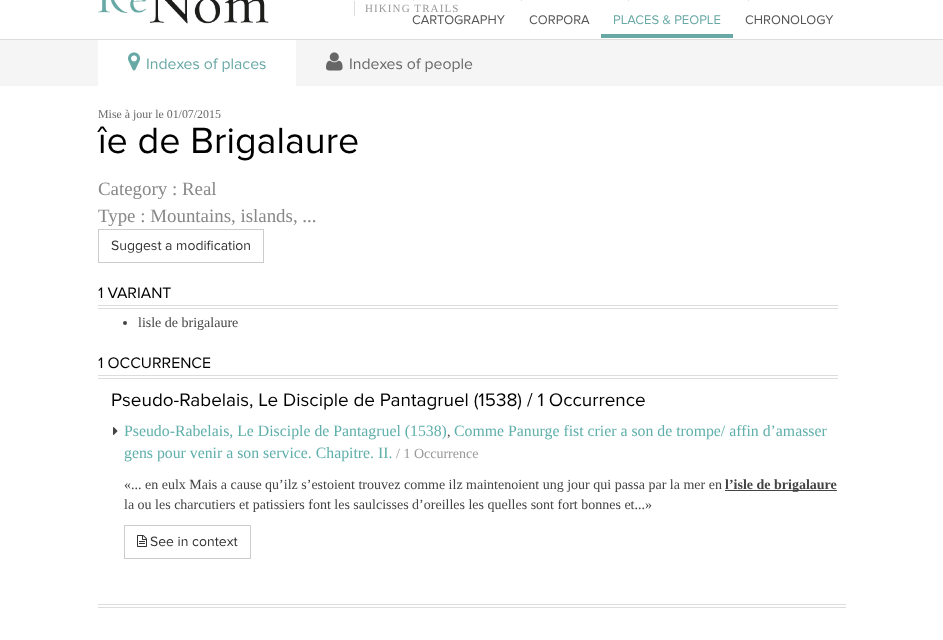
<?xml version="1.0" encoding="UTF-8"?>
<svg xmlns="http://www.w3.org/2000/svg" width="943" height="640">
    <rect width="100%" height="100%" fill="#FFFFFF"/>
    <rect x="0" y="39" width="943" height="1" fill="#DDDDDD"/>
    <image x="98" y="0" width="171" height="24" href="img_01.png"/>
    <rect x="413" y="0" width="1" height="1" fill="#DDDDDD"/>
    <rect x="521" y="0" width="1" height="1" fill="#DDDDDD"/>
    <rect x="628" y="0" width="1" height="1" fill="#DDDDDD"/>
    <rect x="748" y="0" width="1" height="1" fill="#DDDDDD"/>
    <rect x="354" y="1" width="1" height="15" fill="#DDDDDD"/>
    <text x="365" y="12" font-family="Liberation Serif" font-size="11" letter-spacing="1.1" fill="#999999">HIKING TRAILS</text>
    <text x="412" y="24" font-family="Proxima Nova" font-size="13" fill="#555555">CARTOGRAPHY</text>
    <text x="529" y="24" font-family="Proxima Nova" font-size="13" fill="#555555">CORPORA</text>
    <rect x="601" y="34" width="132" height="4" fill="#68A8A5"/>
    <text x="613" y="24" font-family="Proxima Nova" font-size="13" fill="#68A8A5">PLACES &amp; PEOPLE</text>
    <text x="745" y="24" font-family="Proxima Nova" font-size="13" fill="#555555">CHRONOLOGY</text>
    <rect x="0" y="40" width="943" height="46" fill="#F5F5F5"/>
    <rect x="98" y="40" width="198" height="46" fill="#FFFFFF"/>
    <image x="128" y="52" width="13" height="19" href="img_02.png"/>
    <text x="146" y="69" font-family="Proxima Nova" font-size="15.8" fill="#68A8A5">Indexes of places</text>
    <image x="326" y="52" width="17" height="19" href="img_03.png"/>
    <text x="349" y="69" font-family="Proxima Nova" font-size="15.8" fill="#666666">Indexes of people</text>
    <text x="98" y="118" font-family="Liberation Serif" font-size="11.9" fill="#666666">Mise à jour le 01/07/2015</text>
    <text x="98" y="153" font-family="Proxima Nova" font-size="37.75" fill="#000000">îe de Brigalaure</text>
    <text font-family="Liberation Serif" font-size="18.9" fill="#888888">
        <tspan x="98" y="195">Category : Real</tspan>
        <tspan x="98" y="222">Type : Mountains, islands, ...</tspan>
    </text>
    <rect x="98.5" y="229.5" width="165" height="33" fill="none" stroke="#CCCCCC"/>
    <text x="111" y="250" font-family="Proxima Nova" font-size="14" fill="#333333">Suggest a modification</text>
    <rect x="98" y="305" width="740" height="1" fill="#DDDDDD"/>
    <rect x="98" y="308" width="740" height="1" fill="#DDDDDD"/>
    <text x="98" y="298" font-family="Proxima Nova" font-size="15.8" fill="#000000">1 VARIANT</text>
    <circle cx="125" cy="323" r="2" fill="#444444"/>
    <text x="138" y="327" font-family="Liberation Serif" font-size="14" fill="#444444">lisle de brigalaure</text>
    <rect x="98" y="375" width="740" height="1" fill="#DDDDDD"/>
    <rect x="98" y="378" width="740" height="1" fill="#DDDDDD"/>
    <text x="98" y="368" font-family="Proxima Nova" font-size="15.8" fill="#000000">1 OCCURRENCE</text>
    <text x="111" y="406" font-family="Proxima Nova" font-size="18.9" fill="#000000">Pseudo-Rabelais, Le Disciple de Pantagruel (1538) / 1 Occurrence</text>
    <image x="113" y="427" width="5" height="8" href="img_04.png"/>
    <text x="124" y="436" font-family="Liberation Serif" font-size="15.8" fill="#5FAFAB">Pseudo-Rabelais, Le Disciple de Pantagruel (1538)</text>
    <text x="454" y="436" font-family="Liberation Serif" font-size="15.8" fill="#5FAFAB">Comme Panurge fist crier a son de trompe/ affin d’amasser</text>
    <text x="447" y="436" font-family="Liberation Serif" font-size="14" fill="#444444">,</text>
    <text x="124" y="458" font-family="Liberation Serif" font-size="15.8" fill="#5FAFAB">gens pour venir a son service. Chapitre. II.</text>
    <text x="396" y="458" font-family="Liberation Serif" font-size="14" fill="#999999">/ 1 Occurrence</text>
    <text x="124" y="489" font-family="Liberation Serif" font-size="14" fill="#444444">«... en eulx Mais a cause qu’ilz s’estoient trouvez comme ilz maintenoient ung jour qui passa par la mer en</text>
    <rect x="725" y="490" width="112" height="1" fill="#444444"/>
    <text x="725" y="489" font-family="Liberation Serif" font-size="14" font-weight="700" fill="#444444">l’isle de brigalaure</text>
    <text x="124" y="509" font-family="Liberation Serif" font-size="14" fill="#444444">la ou les charcutiers et patissiers font les saulcisses d’oreilles les quelles sont fort bonnes et...»</text>
    <rect x="124.5" y="525.5" width="126" height="33" fill="none" stroke="#CCCCCC"/>
    <image x="137" y="535" width="10" height="12" href="img_05.png"/>
    <text x="150" y="546" font-family="Proxima Nova" font-size="14" fill="#333333">See in context</text>
    <rect x="98" y="604" width="748" height="1" fill="#DDDDDD"/>
    <rect x="98" y="607" width="748" height="1" fill="#DDDDDD"/>
</svg>
